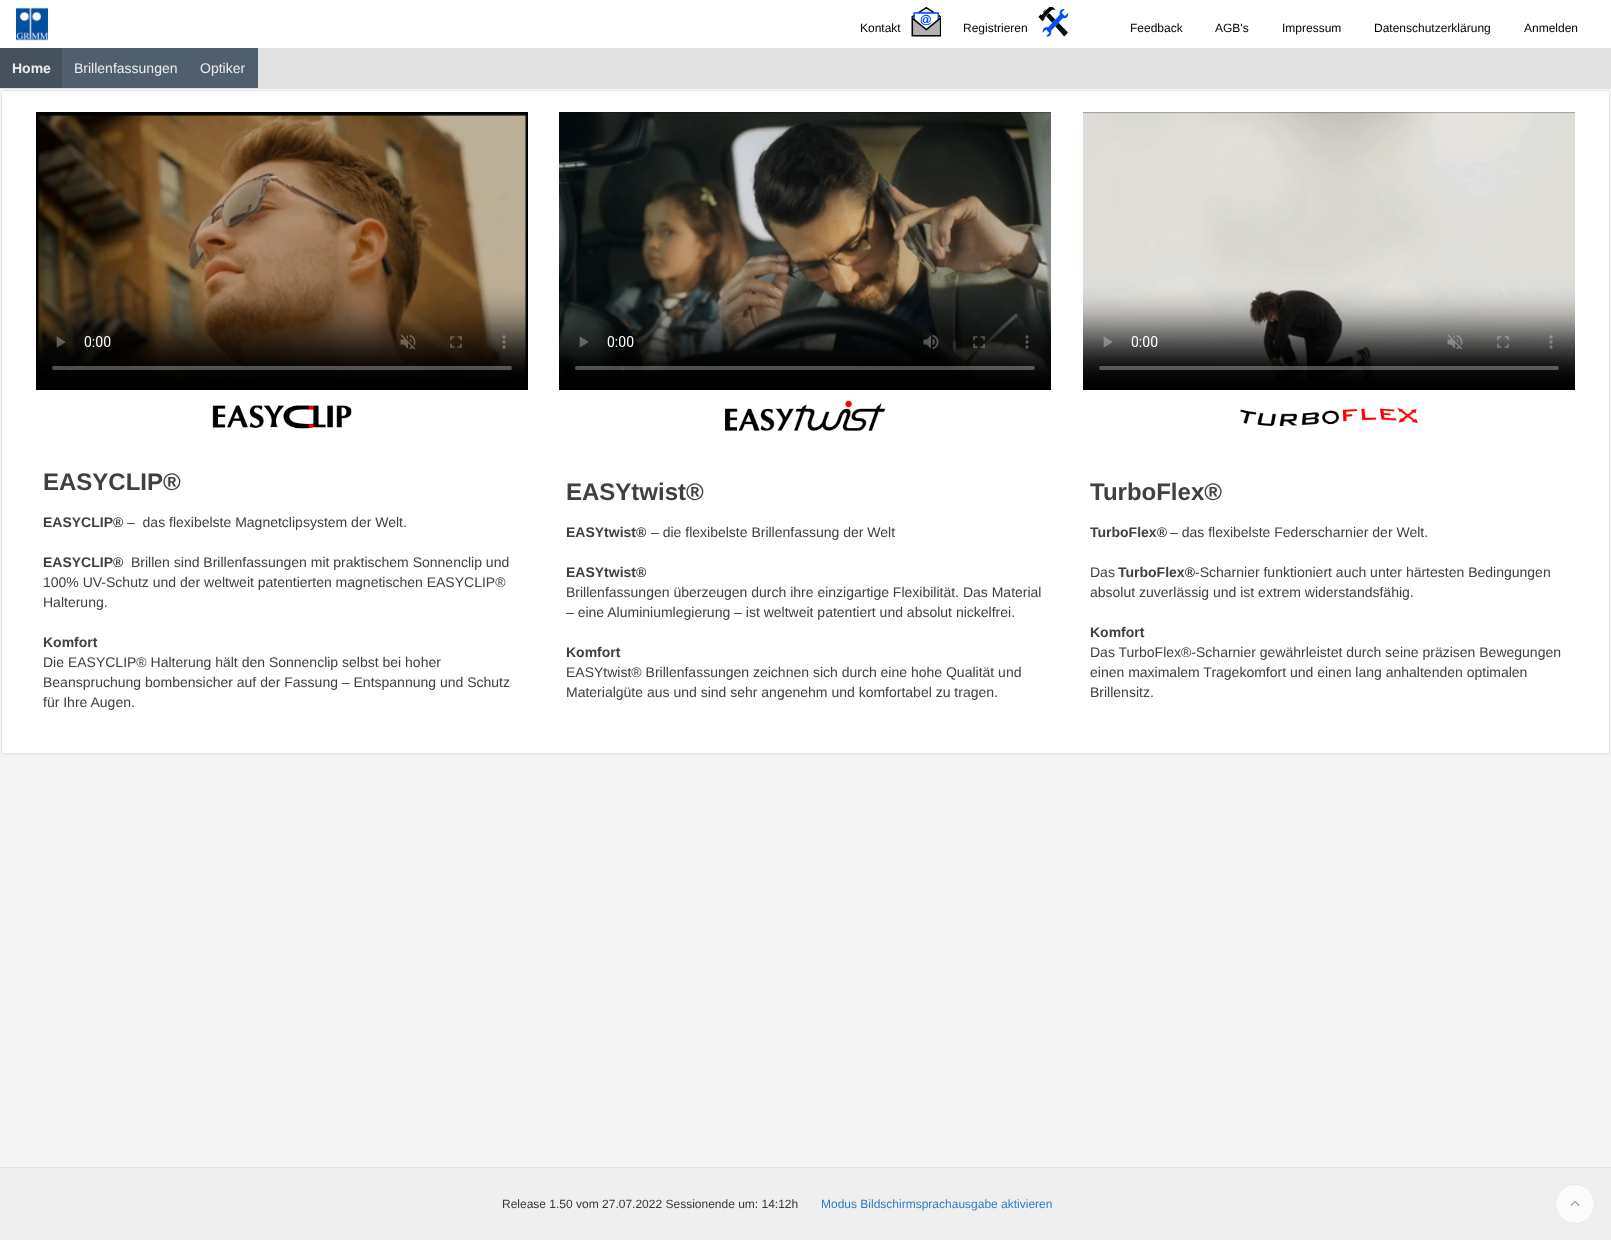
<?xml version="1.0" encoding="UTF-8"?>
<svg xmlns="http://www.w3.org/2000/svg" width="1611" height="1240">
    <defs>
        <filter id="blur1" x="-50%" y="-200%" width="200%" height="500%"><feGaussianBlur stdDeviation="2"/></filter>
    </defs>
    <rect width="100%" height="100%" fill="#F5F5F5"/>
    <rect x="0" y="0" width="1611" height="48" fill="#FFFFFF"/>
    <image x="16" y="7" width="32" height="34" href="img_01.png"/>
    <text x="860" y="32" font-family="Liberation Sans" font-size="12" fill="#000000">Kontakt</text>
    <image x="911" y="7" width="30" height="30" href="img_02.png"/>
    <text x="963" y="32" font-family="Liberation Sans" font-size="12" fill="#000000">Registrieren</text>
    <image x="1038" y="7" width="30" height="30" href="img_03.png"/>
    <text x="1130" y="32" font-family="Liberation Sans" font-size="12" fill="#000000">Feedback</text>
    <text x="1215" y="32" font-family="Liberation Sans" font-size="12" fill="#000000">AGB's</text>
    <text x="1282" y="32" font-family="Liberation Sans" font-size="12" fill="#000000">Impressum</text>
    <text x="1374" y="32" font-family="Liberation Sans" font-size="12" fill="#000000">Datenschutzerklärung</text>
    <text x="1524" y="32" font-family="Liberation Sans" font-size="12" fill="#000000">Anmelden</text>
    <rect x="3" y="94" width="1605" height="660" fill="#000000" fill-opacity="0.07" filter="url(#blur1)"/>
    <rect x="258" y="48" width="1353" height="40" fill="#E2E2E2"/>
    <rect x="0" y="48" width="62" height="40" fill="#45525E"/>
    <text x="12" y="73" font-family="Liberation Sans" font-size="14" font-weight="700" fill="#ECECEC">Home</text>
    <rect x="62" y="48" width="196" height="40" fill="#505F6D"/>
    <text x="74" y="73" font-family="Liberation Sans" font-size="14" fill="#ECECEC">Brillenfassungen</text>
    <text x="200" y="73" font-family="Liberation Sans" font-size="14" fill="#ECECEC">Optiker</text>
    <rect x="0" y="88" width="1611" height="1" fill="#E3E3E3"/>
    <rect x="1.5" y="90.5" width="1608" height="663" rx="1.5" fill="#FFFFFF" stroke="#E5E5E5"/>
    <image x="36" y="112" width="492" height="278" href="img_04.png"/>
    <image x="559" y="112" width="492" height="278" href="img_05.png"/>
    <image x="1083" y="112" width="492" height="278" href="img_06.png"/>
    <image x="212" y="405" width="140" height="24" href="img_07.png"/>
    <image x="725" y="400" width="161" height="31" href="img_08.png"/>
    <image x="1240" y="408" width="178" height="18" href="img_09.png"/>
    <text x="43" y="490" font-family="Liberation Sans" font-size="24" font-weight="700" fill="#404040">EASYCLIP®</text>
    <text x="43" y="527" font-family="Liberation Sans" font-size="14" font-weight="700" fill="#404040">EASYCLIP®</text>
    <text x="127" y="527" font-family="Liberation Sans" font-size="14" fill="#404040" xml:space="preserve">–  das flexibelste Magnetclipsystem der Welt.</text>
    <text x="43" y="567" font-family="Liberation Sans" font-size="14" font-weight="700" fill="#404040">EASYCLIP®</text>
    <text x="131" y="567" font-family="Liberation Sans" font-size="14" fill="#404040">Brillen sind Brillenfassungen mit praktischem Sonnenclip und</text>
    <text font-family="Liberation Sans" font-size="14" fill="#404040">
        <tspan x="43" y="587">100% UV-Schutz und der weltweit patentierten magnetischen EASYCLIP®</tspan>
        <tspan x="43" y="607">Halterung.</tspan>
    </text>
    <text x="43" y="647" font-family="Liberation Sans" font-size="14" font-weight="700" fill="#404040">Komfort</text>
    <text font-family="Liberation Sans" font-size="14" fill="#404040">
        <tspan x="43" y="667">Die EASYCLIP® Halterung hält den Sonnenclip selbst bei hoher</tspan>
        <tspan x="43" y="687">Beanspruchung bombensicher auf der Fassung – Entspannung und Schutz</tspan>
        <tspan x="43" y="707">für Ihre Augen.</tspan>
    </text>
    <text x="566" y="500" font-family="Liberation Sans" font-size="24" font-weight="700" fill="#404040">EASYtwist®</text>
    <text x="566" y="537" font-family="Liberation Sans" font-size="14" font-weight="700" fill="#404040">EASYtwist®</text>
    <text x="651" y="537" font-family="Liberation Sans" font-size="14" fill="#404040">– die flexibelste Brillenfassung der Welt</text>
    <text x="566" y="577" font-family="Liberation Sans" font-size="14" font-weight="700" fill="#404040">EASYtwist®</text>
    <text font-family="Liberation Sans" font-size="14" fill="#404040">
        <tspan x="566" y="597">Brillenfassungen überzeugen durch ihre einzigartige Flexibilität. Das Material</tspan>
        <tspan x="566" y="617">– eine Aluminiumlegierung – ist weltweit patentiert und absolut nickelfrei.</tspan>
    </text>
    <text x="566" y="657" font-family="Liberation Sans" font-size="14" font-weight="700" fill="#404040">Komfort</text>
    <text font-family="Liberation Sans" font-size="14" fill="#404040">
        <tspan x="566" y="677">EASYtwist® Brillenfassungen zeichnen sich durch eine hohe Qualität und</tspan>
        <tspan x="566" y="697">Materialgüte aus und sind sehr angenehm und komfortabel zu tragen.</tspan>
    </text>
    <text x="1090" y="500" font-family="Liberation Sans" font-size="24" font-weight="700" fill="#404040">TurboFlex®</text>
    <text x="1090" y="537" font-family="Liberation Sans" font-size="14" font-weight="700" fill="#404040">TurboFlex®</text>
    <text x="1170" y="537" font-family="Liberation Sans" font-size="14" fill="#404040">– das flexibelste Federscharnier der Welt.</text>
    <text x="1090" y="577" font-family="Liberation Sans" font-size="14" fill="#404040">Das</text>
    <text x="1118" y="577" font-family="Liberation Sans" font-size="14" font-weight="700" fill="#404040">TurboFlex®</text>
    <text x="1195" y="577" font-family="Liberation Sans" font-size="14" fill="#404040">-Scharnier funktioniert auch unter härtesten Bedingungen</text>
    <text x="1090" y="597" font-family="Liberation Sans" font-size="14" fill="#404040">absolut zuverlässig und ist extrem widerstandsfähig.</text>
    <text x="1090" y="637" font-family="Liberation Sans" font-size="14" font-weight="700" fill="#404040">Komfort</text>
    <text font-family="Liberation Sans" font-size="14" fill="#404040">
        <tspan x="1090" y="657">Das TurboFlex®-Scharnier gewährleistet durch seine präzisen Bewegungen</tspan>
        <tspan x="1090" y="677">einen maximalem Tragekomfort und einen lang anhaltenden optimalen</tspan>
        <tspan x="1090" y="697">Brillensitz.</tspan>
    </text>
    <rect x="0" y="1168" width="1611" height="72" fill="#EFEFEF"/>
    <rect x="0" y="1167" width="1611" height="1" fill="#E3E3E3"/>
    <text x="502" y="1208" font-family="Liberation Sans" font-size="12" fill="#363636">Release 1.50 vom 27.07.2022 Sessionende um: 14:12h</text>
    <text x="821" y="1208" font-family="Liberation Sans" font-size="12" fill="#337AC0">Modus Bildschirmsprachausgabe aktivieren</text>
    <circle cx="1575" cy="1204" r="20" fill="#FBFBFB"/>
    <circle cx="1575" cy="1204" r="19.5" fill="none" stroke="#3C3C3C" stroke-opacity="0.1"/>
    <image x="1570" y="1201" width="10" height="5" href="img_10.png"/>
</svg>
